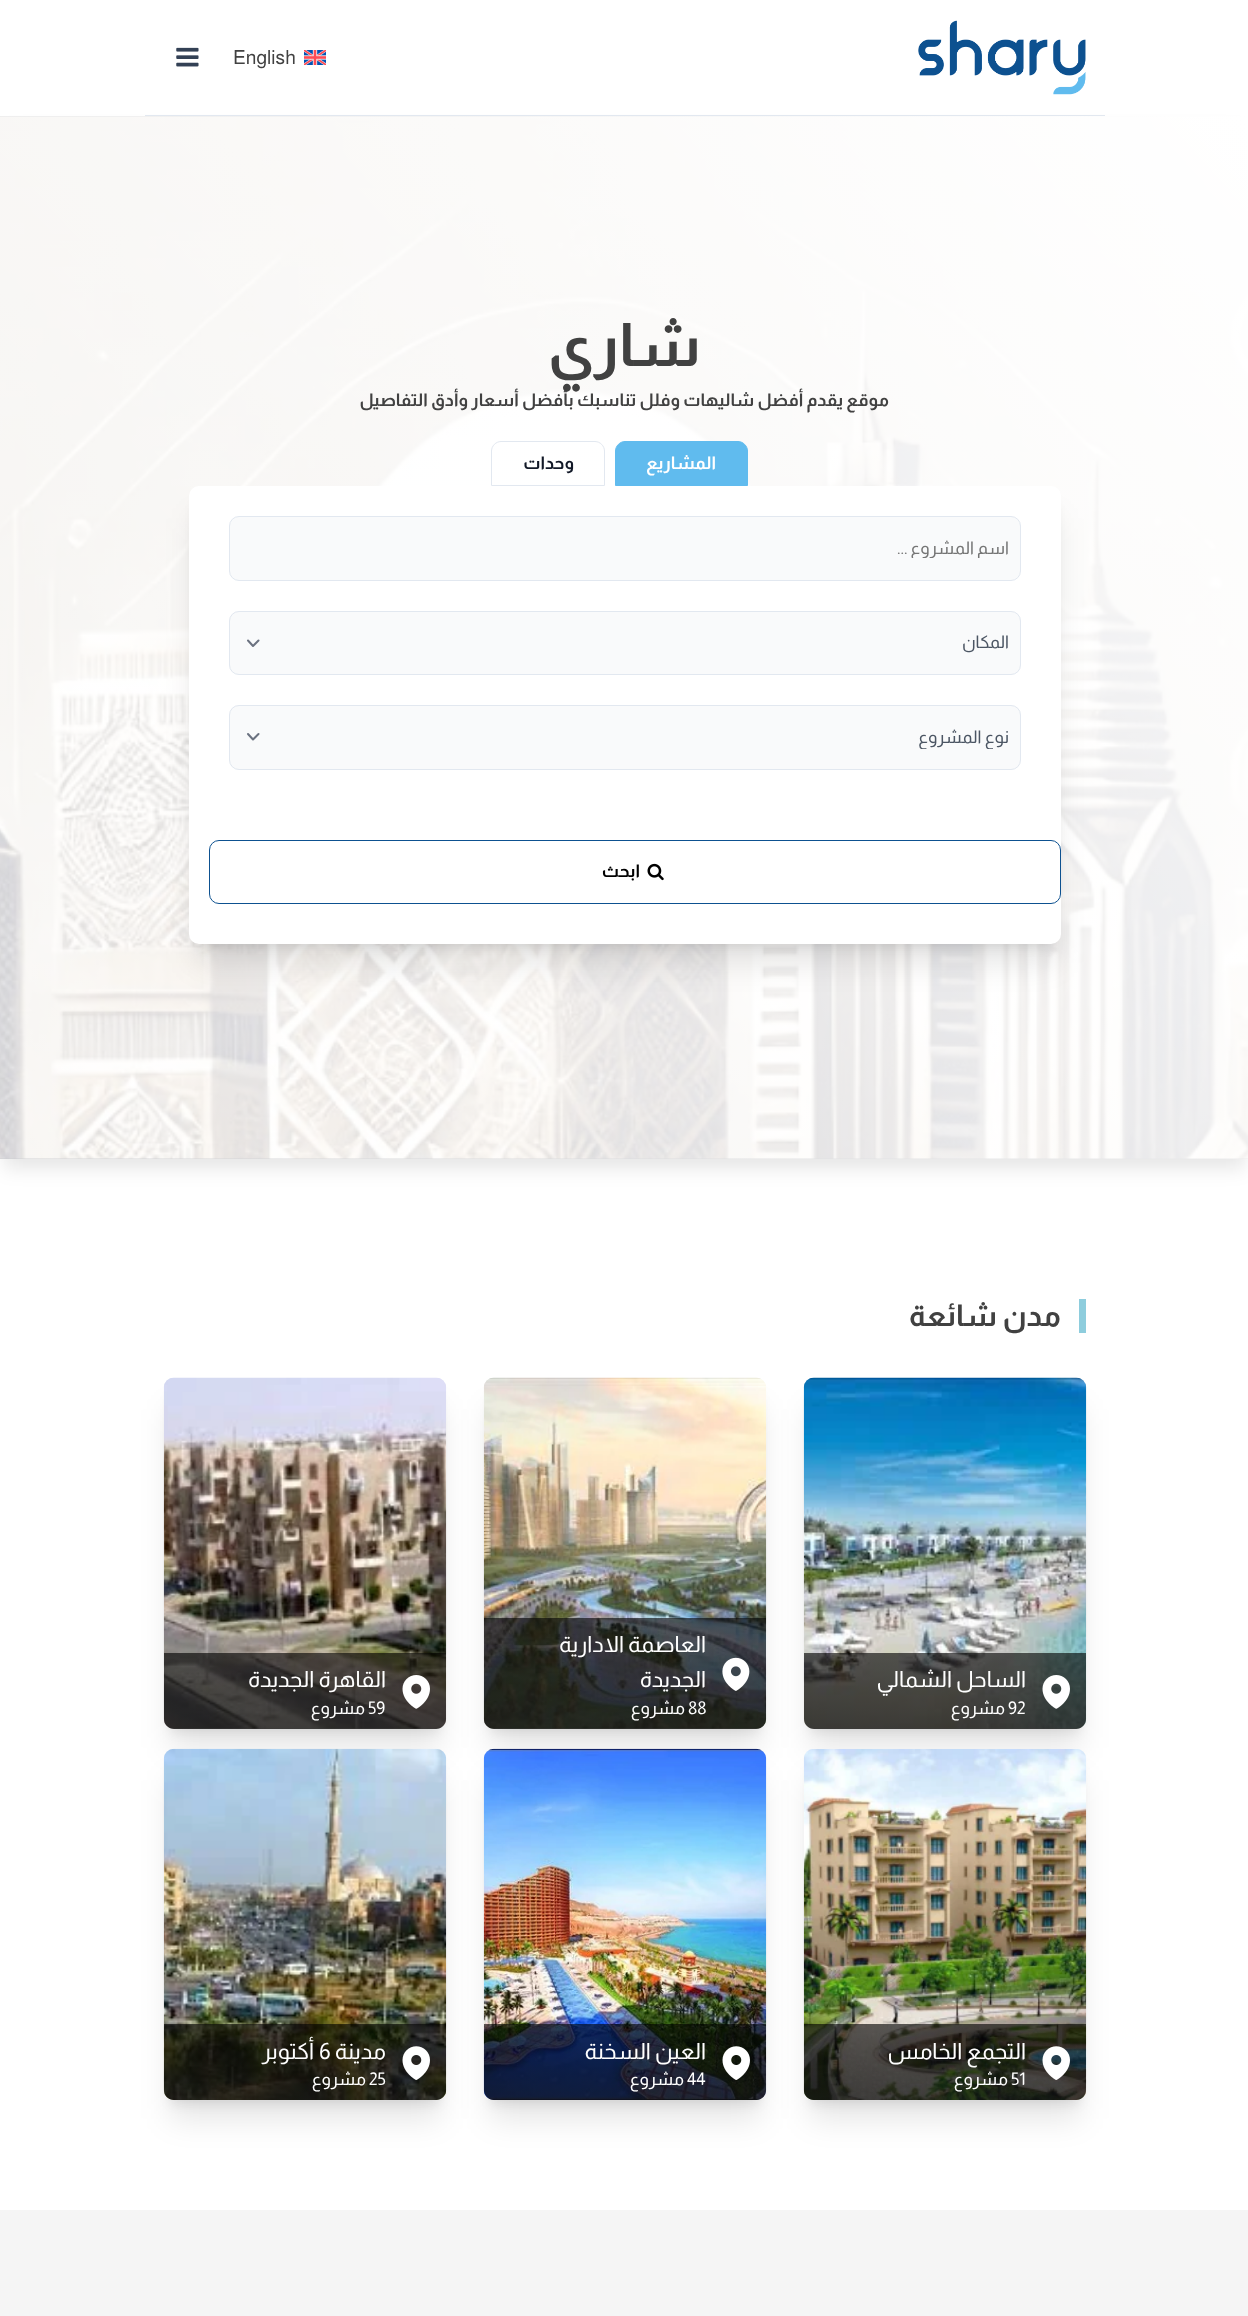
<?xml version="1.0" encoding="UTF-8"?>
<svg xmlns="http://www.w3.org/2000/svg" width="1248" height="2316">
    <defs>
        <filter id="blur1" x="-50%" y="-200%" width="200%" height="500%"><feGaussianBlur stdDeviation="9.5"/></filter>
        <linearGradient id="g1" gradientUnits="userSpaceOnUse" x1="20" y1="1181" x2="1228" y2="94"><stop offset="0" stop-color="#FFFFFF" stop-opacity="0.79"/><stop offset="1" stop-color="#FFFFFF"/></linearGradient>
        <filter id="blur2" x="-50%" y="-200%" width="200%" height="500%"><feGaussianBlur stdDeviation="6"/></filter>
        <filter id="blur3" x="-50%" y="-200%" width="200%" height="500%"><feGaussianBlur stdDeviation="15.5"/></filter>
        <clipPath id="clip1"><rect x="233" y="538" width="777" height="20"/></clipPath>
        <clipPath id="clip2"><rect x="230" y="726" width="780" height="23"/></clipPath>
        <linearGradient id="g2" gradientUnits="userSpaceOnUse" x1="947" y1="1645" x2="943" y2="1736"><stop offset="0" stop-color="#000000" stop-opacity="0.6"/><stop offset="1" stop-color="#151515" stop-opacity="0.81"/></linearGradient>
        <linearGradient id="g3" gradientUnits="userSpaceOnUse" x1="628" y1="1610" x2="622" y2="1736"><stop offset="0" stop-color="#000000" stop-opacity="0.6"/><stop offset="1" stop-color="#151515" stop-opacity="0.81"/></linearGradient>
        <linearGradient id="g4" gradientUnits="userSpaceOnUse" x1="307" y1="1645" x2="303" y2="1736"><stop offset="0" stop-color="#000000" stop-opacity="0.6"/><stop offset="1" stop-color="#151515" stop-opacity="0.81"/></linearGradient>
        <linearGradient id="g5" gradientUnits="userSpaceOnUse" x1="947" y1="2016" x2="943" y2="2107"><stop offset="0" stop-color="#000000" stop-opacity="0.6"/><stop offset="1" stop-color="#151515" stop-opacity="0.81"/></linearGradient>
        <linearGradient id="g6" gradientUnits="userSpaceOnUse" x1="627" y1="2016" x2="623" y2="2107"><stop offset="0" stop-color="#000000" stop-opacity="0.6"/><stop offset="1" stop-color="#151515" stop-opacity="0.81"/></linearGradient>
        <linearGradient id="g7" gradientUnits="userSpaceOnUse" x1="307" y1="2016" x2="303" y2="2107"><stop offset="0" stop-color="#000000" stop-opacity="0.6"/><stop offset="1" stop-color="#151515" stop-opacity="0.81"/></linearGradient>
    </defs>
    <rect width="100%" height="100%" fill="#FFFFFF"/>
    <rect x="4" y="133" width="1241" height="1035" fill="#000000" fill-opacity="0.1" filter="url(#blur1)"/>
    <rect x="145" y="115" width="960" height="1" fill="#E2E8F0"/>
    <image x="918" y="20" width="168" height="75" href="img_01.png"/>
    <image x="304" y="50" width="22" height="15" href="img_02.png"/>
    <text x="233" y="64" font-family="Almarai" font-size="19.5" fill="#414141">English</text>
    <image x="176" y="47" width="23" height="20" href="img_03.png"/>
    <rect x="0" y="116" width="1248" height="1043" fill="#111827"/>
    <image x="0" y="116" width="1248" height="1043" href="img_04.png"/>
    <rect x="0" y="116" width="1248" height="1043" fill="url(#g1)"/>
    <text x="701" y="366" font-family="Almarai" font-size="60" font-weight="700" direction="rtl" fill="#414141">شاري</text>
    <text x="889" y="406" font-family="Almarai" font-size="17.5" font-weight="700" direction="rtl" fill="#414141">موقع يقدم أفضل شاليهات وفلل تناسبك بأفضل أسعار وأدق التفاصيل</text>
    <path d="M 625 441.5 H 738 C 743 441.5 747.5 446 747.5 451 V 485.5 H 615.5 V 451 C 615.5 446 620 441.5 625 441.5 Z" fill="#60BBEE" stroke="#60BBEE"/>
    <text x="716" y="469" font-family="Almarai" font-size="17.5" font-weight="700" direction="rtl" fill="#FFFFFF">المشاريع</text>
    <path d="M 501 441.5 H 595 C 600 441.5 604.5 446 604.5 451 V 485.5 H 491.5 V 451 C 491.5 446 496 441.5 501 441.5 Z" fill="none" stroke="#E2E8F0"/>
    <text x="574" y="469" font-family="Almarai" font-size="17.5" font-weight="700" direction="rtl" fill="#111827">وحدات</text>
    <rect x="196" y="504" width="858" height="442" rx="2.5" fill="#000000" fill-opacity="0.1" filter="url(#blur2)"/>
    <rect x="195" y="518" width="860" height="445" rx="4" fill="#000000" fill-opacity="0.1" filter="url(#blur3)"/>
    <rect x="189" y="486" width="872" height="458" rx="10" fill="#FFFFFF"/>
    <rect x="229.5" y="516.5" width="791" height="64" rx="9.5" fill="#F9FAFB" stroke="#E2E8F0"/>
    <g clip-path="url(#clip1)">
        <text x="1009" y="554" font-family="Almarai" font-size="17.5" direction="rtl" fill="#757575">اسم المشروع ...</text>
    </g>
    <rect x="229" y="611" width="792" height="64" rx="10" fill="#F9FAFB"/>
    <path d="M 248 640.5 L 253 646 L 258.5 640.5" fill="none" stroke="#6B7280" stroke-width="2" stroke-linecap="round" stroke-linejoin="round"/>
    <rect x="229.5" y="611.5" width="791" height="63" rx="9.5" fill="none" stroke="#E2E8F0"/>
    <text x="1009" y="648" font-family="Almarai" font-size="17.5" direction="rtl" fill="#4B5563">المكان</text>
    <rect x="229" y="705" width="792" height="65" rx="10" fill="#F9FAFB"/>
    <path d="M 248 734 L 253 739.5 L 258.5 734" fill="none" stroke="#6B7280" stroke-width="2" stroke-linecap="round" stroke-linejoin="round"/>
    <rect x="229.5" y="705.5" width="791" height="64" rx="9.5" fill="none" stroke="#E2E8F0"/>
    <g clip-path="url(#clip2)">
        <text x="1009" y="743" font-family="Almarai" font-size="17.5" direction="rtl" fill="#4B5563">نوع المشروع</text>
    </g>
    <rect x="209.5" y="840.5" width="851" height="63" rx="9.5" fill="none" stroke="#0D5190"/>
    <image x="647" y="863" width="17" height="18" href="img_05.png"/>
    <text x="640" y="877" font-family="Almarai" font-size="17.5" font-weight="700" direction="rtl" fill="#000000">ابحث</text>
    <rect x="1079" y="1299" width="7" height="34" fill="#8ECDDD"/>
    <text x="1061" y="1326" font-family="Almarai" font-size="30" font-weight="700" direction="rtl" fill="#414141">مدن شائعة</text>
    <rect x="811" y="1395" width="268" height="336" rx="2.5" fill="#000000" fill-opacity="0.1" filter="url(#blur2)"/>
    <rect x="810" y="1409" width="270" height="339" rx="4" fill="#000000" fill-opacity="0.1" filter="url(#blur3)"/>
    <image x="803" y="1377" width="284" height="352" href="img_06.png"/>
    <path d="M 804 1653 H 1086 V 1719 C 1086 1724.5 1081.5 1729 1076 1729 H 814 C 808.5 1729 804 1724.5 804 1719 Z" fill="url(#g2)"/>
    <image x="1042" y="1675" width="28" height="34" href="img_07.png"/>
    <text x="1026" y="1687" font-family="Almarai" font-size="22.5" direction="rtl" fill="#FFFFFF">الساحل الشمالي</text>
    <text x="1008" y="1714" font-family="Almarai" font-size="17.5" fill="#FFFFFF">92</text>
    <text x="1005" y="1714" font-family="Almarai" font-size="17.5" direction="rtl" fill="#FFFFFF">مشروع</text>
    <rect x="491" y="1395" width="268" height="336" rx="2.5" fill="#000000" fill-opacity="0.1" filter="url(#blur2)"/>
    <rect x="490" y="1409" width="270" height="339" rx="4" fill="#000000" fill-opacity="0.1" filter="url(#blur3)"/>
    <image x="483" y="1377" width="284" height="352" href="img_08.png"/>
    <path d="M 484 1618 H 766 V 1719 C 766 1724.5 761.5 1729 756 1729 H 494 C 488.5 1729 484 1724.5 484 1719 Z" fill="url(#g3)"/>
    <image x="722" y="1657" width="28" height="34" href="img_09.png"/>
    <text font-family="Almarai" font-size="22.5" direction="rtl" fill="#FFFFFF">
        <tspan x="706" y="1652">العاصمة الادارية</tspan>
        <tspan x="706" y="1687">الجديدة</tspan>
    </text>
    <text x="688" y="1714" font-family="Almarai" font-size="17.5" fill="#FFFFFF">88</text>
    <text x="685" y="1714" font-family="Almarai" font-size="17.5" direction="rtl" fill="#FFFFFF">مشروع</text>
    <rect x="171" y="1395" width="268" height="336" rx="2.5" fill="#000000" fill-opacity="0.1" filter="url(#blur2)"/>
    <rect x="170" y="1409" width="270" height="339" rx="4" fill="#000000" fill-opacity="0.1" filter="url(#blur3)"/>
    <image x="163" y="1377" width="284" height="352" href="img_10.png"/>
    <path d="M 164 1653 H 446 V 1719 C 446 1724.5 441.5 1729 436 1729 H 174 C 168.5 1729 164 1724.5 164 1719 Z" fill="url(#g4)"/>
    <image x="402" y="1675" width="28" height="34" href="img_11.png"/>
    <text x="386" y="1687" font-family="Almarai" font-size="22.5" direction="rtl" fill="#FFFFFF">القاهرة الجديدة</text>
    <text x="368" y="1714" font-family="Almarai" font-size="17.5" fill="#FFFFFF">59</text>
    <text x="365" y="1714" font-family="Almarai" font-size="17.5" direction="rtl" fill="#FFFFFF">مشروع</text>
    <rect x="811" y="1766" width="268" height="337" rx="2.5" fill="#000000" fill-opacity="0.1" filter="url(#blur2)"/>
    <rect x="810" y="1780" width="270" height="339" rx="4" fill="#000000" fill-opacity="0.1" filter="url(#blur3)"/>
    <image x="803" y="1749" width="284" height="351" href="img_12.png"/>
    <path d="M 804 2024 H 1086 V 2090 C 1086 2095.5 1081.5 2100 1076 2100 H 814 C 808.5 2100 804 2095.5 804 2090 Z" fill="url(#g5)"/>
    <image x="1042" y="2046" width="28" height="34" href="img_13.png"/>
    <text x="1026" y="2059" font-family="Almarai" font-size="22.5" direction="rtl" fill="#FFFFFF">التجمع الخامس</text>
    <text x="1011" y="2085" font-family="Almarai" font-size="17.5" fill="#FFFFFF">51</text>
    <text x="1008" y="2085" font-family="Almarai" font-size="17.5" direction="rtl" fill="#FFFFFF">مشروع</text>
    <rect x="491" y="1766" width="268" height="337" rx="2.5" fill="#000000" fill-opacity="0.1" filter="url(#blur2)"/>
    <rect x="490" y="1780" width="270" height="339" rx="4" fill="#000000" fill-opacity="0.1" filter="url(#blur3)"/>
    <image x="483" y="1748" width="284" height="352" href="img_14.png"/>
    <path d="M 484 2024 H 766 V 2090 C 766 2095.5 761.5 2100 756 2100 H 494 C 488.5 2100 484 2095.5 484 2090 Z" fill="url(#g6)"/>
    <image x="722" y="2046" width="28" height="34" href="img_15.png"/>
    <text x="706" y="2059" font-family="Almarai" font-size="22.5" direction="rtl" fill="#FFFFFF">العين السخنة</text>
    <text x="687" y="2085" font-family="Almarai" font-size="17.5" fill="#FFFFFF">44</text>
    <text x="684" y="2085" font-family="Almarai" font-size="17.5" direction="rtl" fill="#FFFFFF">مشروع</text>
    <rect x="171" y="1766" width="268" height="337" rx="2.5" fill="#000000" fill-opacity="0.1" filter="url(#blur2)"/>
    <rect x="170" y="1780" width="270" height="339" rx="4" fill="#000000" fill-opacity="0.1" filter="url(#blur3)"/>
    <image x="163" y="1748" width="284" height="352" href="img_16.png"/>
    <path d="M 164 2024 H 446 V 2090 C 446 2095.5 441.5 2100 436 2100 H 174 C 168.5 2100 164 2095.5 164 2090 Z" fill="url(#g7)"/>
    <image x="402" y="2046" width="28" height="34" href="img_17.png"/>
    <text x="386" y="2059" font-family="Almarai" font-size="22.5" direction="rtl" fill="#FFFFFF">مدينة</text>
    <text x="319" y="2059" font-family="Almarai" font-size="22.5" fill="#FFFFFF">6</text>
    <text x="314" y="2059" font-family="Almarai" font-size="22.5" direction="rtl" fill="#FFFFFF">أكتوبر</text>
    <text x="369" y="2085" font-family="Almarai" font-size="17.5" fill="#FFFFFF">25</text>
    <text x="366" y="2085" font-family="Almarai" font-size="17.5" direction="rtl" fill="#FFFFFF">مشروع</text>
    <rect x="0" y="2210" width="1248" height="106" fill="#F5F5F5"/>
</svg>
